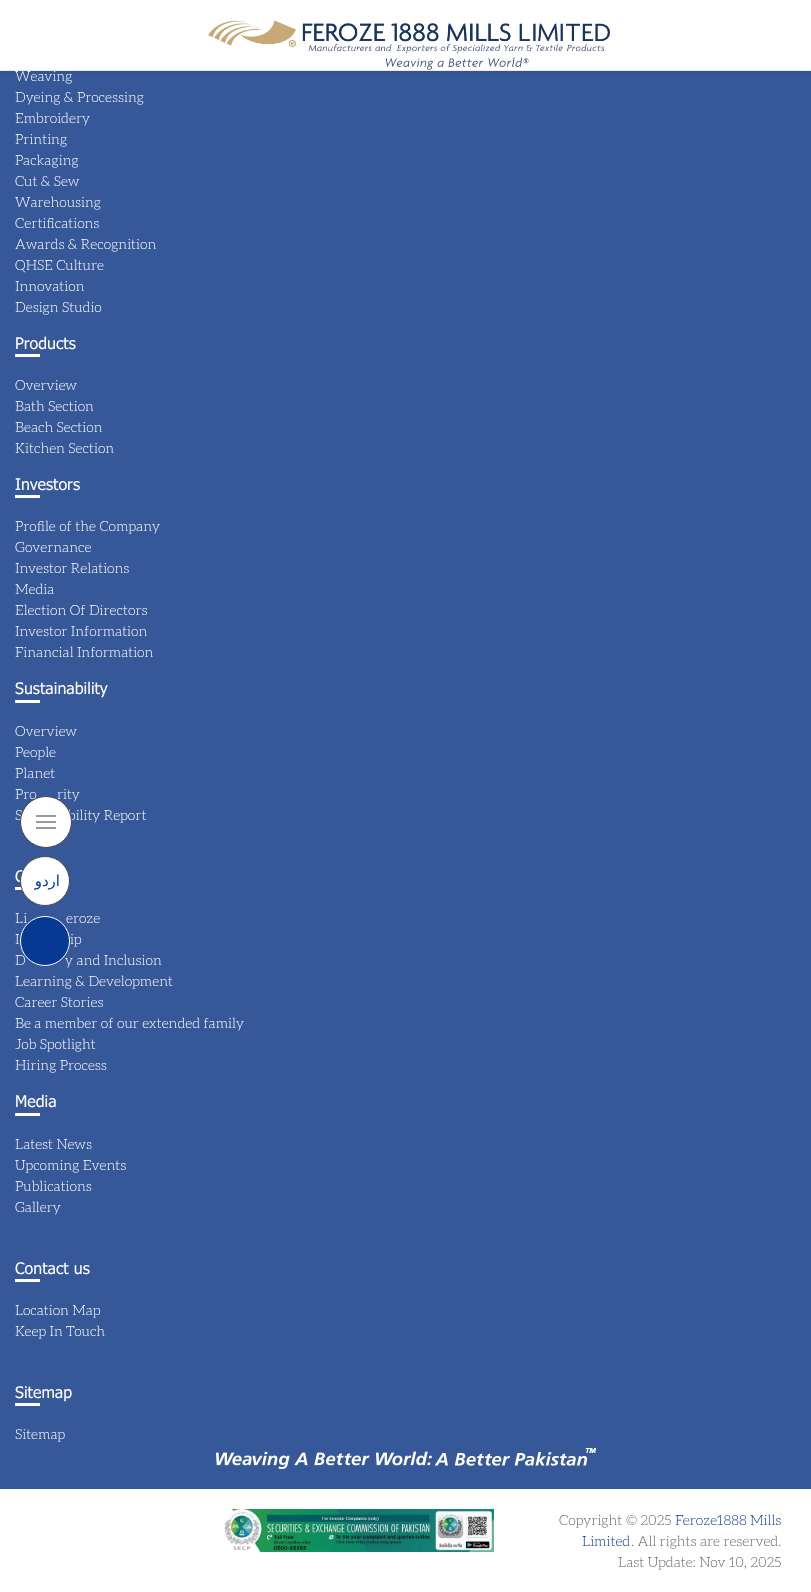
<?xml version="1.0" encoding="UTF-8"?>
<svg xmlns="http://www.w3.org/2000/svg" width="811" height="1592">
    <defs>
        <filter id="blur1" x="-50%" y="-200%" width="200%" height="500%"><feGaussianBlur stdDeviation="4"/></filter>
    </defs>
    <rect width="100%" height="100%" fill="#FFFFFF"/>
    <rect x="0" y="71" width="811" height="1418" fill="#365899"/>
    <rect x="0" y="2" width="811" height="71" fill="#000000" fill-opacity="0.08" filter="url(#blur1)"/>
    <rect x="0" y="0" width="811" height="70" fill="#FFFFFF"/>
    <rect x="0" y="70" width="811" height="1" fill="#EBEBEB"/>
    <image x="208" y="20" width="402" height="50" href="img_01.png"/>
    <text font-family="Aleo" font-size="14" font-weight="300" fill="#FFFFFF">
        <tspan x="15" y="81">Weaving</tspan>
        <tspan x="15" y="102">Dyeing &amp; Processing</tspan>
        <tspan x="15" y="123">Embroidery</tspan>
        <tspan x="15" y="144">Printing</tspan>
        <tspan x="15" y="165">Packaging</tspan>
        <tspan x="15" y="186">Cut &amp; Sew</tspan>
        <tspan x="15" y="207">Warehousing</tspan>
        <tspan x="15" y="228">Certifications</tspan>
        <tspan x="15" y="249">Awards &amp; Recognition</tspan>
        <tspan x="15" y="270">QHSE Culture</tspan>
        <tspan x="15" y="291">Innovation</tspan>
        <tspan x="15" y="312">Design Studio</tspan>
    </text>
    <text x="15" y="349" font-family="Tahoma" font-size="16" fill="#FFFFFF">Products</text>
    <rect x="15" y="354" width="25" height="3" fill="#FFFFFF"/>
    <text font-family="Aleo" font-size="14" font-weight="300" fill="#FFFFFF">
        <tspan x="15" y="390">Overview</tspan>
        <tspan x="15" y="411">Bath Section</tspan>
        <tspan x="15" y="432">Beach Section</tspan>
        <tspan x="15" y="453">Kitchen Section</tspan>
    </text>
    <text x="15" y="490" font-family="Tahoma" font-size="16" fill="#FFFFFF">Investors</text>
    <rect x="15" y="495" width="25" height="3" fill="#FFFFFF"/>
    <text font-family="Aleo" font-size="14" font-weight="300" fill="#FFFFFF">
        <tspan x="15" y="531">Profile of the Company</tspan>
        <tspan x="15" y="552">Governance</tspan>
        <tspan x="15" y="573">Investor Relations</tspan>
        <tspan x="15" y="594">Media</tspan>
        <tspan x="15" y="615">Election Of Directors</tspan>
        <tspan x="15" y="636">Investor Information</tspan>
        <tspan x="15" y="657">Financial Information</tspan>
    </text>
    <text x="15" y="694" font-family="Tahoma" font-size="16" fill="#FFFFFF">Sustainability</text>
    <rect x="15" y="700" width="25" height="3" fill="#FFFFFF"/>
    <text font-family="Aleo" font-size="14" font-weight="300" fill="#FFFFFF">
        <tspan x="15" y="736">Overview</tspan>
        <tspan x="15" y="757">People</tspan>
        <tspan x="15" y="778">Planet</tspan>
        <tspan x="15" y="799">Pro</tspan>
    </text>
    <text x="57" y="799" font-family="Aleo" font-size="14" font-weight="300" fill="#FFFFFF">rity</text>
    <text x="15" y="820" font-family="Aleo" font-size="14" font-weight="300" fill="#FFFFFF">S</text>
    <text x="68" y="820" font-family="Aleo" font-size="14" font-weight="300" fill="#FFFFFF">bility Report</text>
    <text x="15" y="882" font-family="Tahoma" font-size="16" fill="#FFFFFF">C</text>
    <rect x="15" y="887" width="7" height="3" fill="#FFFFFF"/>
    <text x="15" y="923" font-family="Aleo" font-size="14" font-weight="300" fill="#FFFFFF">Li</text>
    <text x="66" y="923" font-family="Aleo" font-size="14" font-weight="300" fill="#FFFFFF">eroze</text>
    <text x="15" y="944" font-family="Aleo" font-size="14" font-weight="300" fill="#FFFFFF">I</text>
    <text x="70" y="944" font-family="Aleo" font-size="14" font-weight="300" fill="#FFFFFF">ip</text>
    <text x="15" y="965" font-family="Aleo" font-size="14" font-weight="300" fill="#FFFFFF">D</text>
    <text x="65" y="965" font-family="Aleo" font-size="14" font-weight="300" fill="#FFFFFF">y and Inclusion</text>
    <text font-family="Aleo" font-size="14" font-weight="300" fill="#FFFFFF">
        <tspan x="15" y="986">Learning &amp; Development</tspan>
        <tspan x="15" y="1007">Career Stories</tspan>
        <tspan x="15" y="1028">Be a member of our extended family</tspan>
        <tspan x="15" y="1049">Job Spotlight</tspan>
        <tspan x="15" y="1070">Hiring Process</tspan>
    </text>
    <text x="15" y="1107" font-family="Tahoma" font-size="16" fill="#FFFFFF">Media</text>
    <rect x="15" y="1113" width="25" height="3" fill="#FFFFFF"/>
    <text font-family="Aleo" font-size="14" font-weight="300" fill="#FFFFFF">
        <tspan x="15" y="1149">Latest News</tspan>
        <tspan x="15" y="1170">Upcoming Events</tspan>
        <tspan x="15" y="1191">Publications</tspan>
        <tspan x="15" y="1212">Gallery</tspan>
    </text>
    <text x="15" y="1274" font-family="Tahoma" font-size="16" fill="#FFFFFF">Contact us</text>
    <rect x="15" y="1279" width="25" height="3" fill="#FFFFFF"/>
    <text font-family="Aleo" font-size="14" font-weight="300" fill="#FFFFFF">
        <tspan x="15" y="1315">Location Map</tspan>
        <tspan x="15" y="1336">Keep In Touch</tspan>
    </text>
    <text x="15" y="1398" font-family="Tahoma" font-size="16" fill="#FFFFFF">Sitemap</text>
    <rect x="15" y="1403" width="25" height="3" fill="#FFFFFF"/>
    <text x="15" y="1439" font-family="Aleo" font-size="14" font-weight="300" fill="#FFFFFF">Sitemap</text>
    <image x="216" y="1448" width="380" height="21" href="img_02.png"/>
    <image x="224" y="1509" width="270" height="43" href="img_03.png"/>
    <text x="559" y="1525" font-family="Aleo" font-size="14" font-weight="300" fill="#666666">Copyright © 2025</text>
    <text x="675" y="1525" font-family="Aleo" font-size="14" font-weight="300" fill="#043995">Feroze1888 Mills</text>
    <text x="582" y="1546" font-family="Aleo" font-size="14" font-weight="300" fill="#043995">Limited</text>
    <text x="631" y="1546" font-family="Aleo" font-size="14" font-weight="300" fill="#666666">. All rights are reserved.</text>
    <text x="618" y="1567" font-family="Aleo" font-size="14" font-weight="300" fill="#666666">Last Update: Nov 10, 2025</text>
    <circle cx="46" cy="822" r="25.5" fill="#FFFFFF" stroke="#484848"/>
    <rect x="36" y="821" width="20" height="2" fill="#999999"/>
    <rect x="36" y="815" width="20" height="2" fill="#999999"/>
    <rect x="36" y="827" width="20" height="2" fill="#999999"/>
    <circle cx="45" cy="881" r="24.5" fill="#FFFFFF" stroke="#484848"/>
    <text x="60" y="886" font-family="DejaVu Sans" font-size="15" letter-spacing="0.5" direction="rtl" fill="#043995">اردو</text>
    <circle cx="45" cy="941" r="24.5" fill="#063994" stroke="#FFFFFF"/>
</svg>
